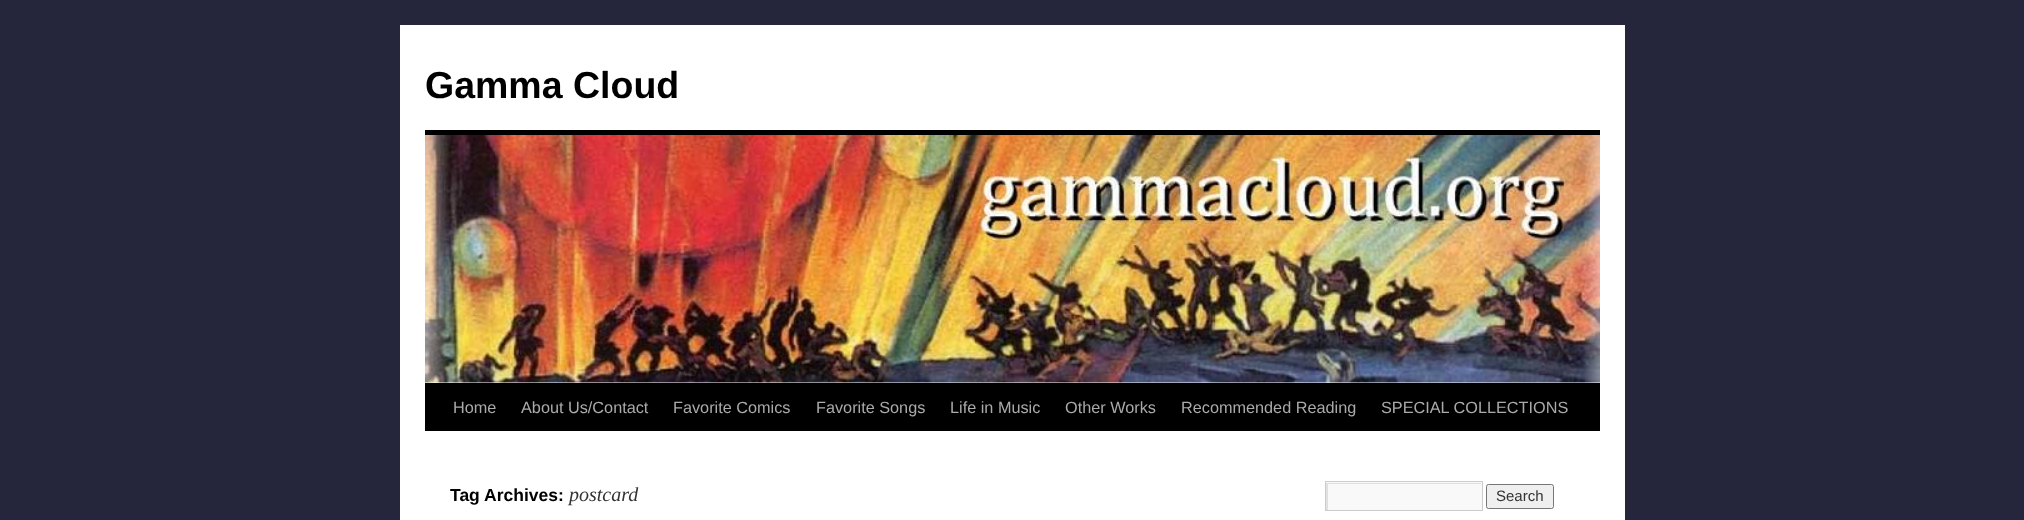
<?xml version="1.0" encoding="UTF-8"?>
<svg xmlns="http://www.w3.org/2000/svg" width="2024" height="520">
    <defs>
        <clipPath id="clip1"><rect x="1326" y="483" width="155" height="27"/></clipPath>
    </defs>
    <rect width="100%" height="100%" fill="#25263C"/>
    <rect x="400" y="25" width="1225" height="495" fill="#FFFFFF"/>
    <text x="425" y="98" font-family="Liberation Sans" font-size="37.5" font-weight="700" fill="#000000">Gamma Cloud</text>
    <rect x="425" y="130" width="1175" height="5" fill="#000000"/>
    <rect x="425" y="383" width="1175" height="48" fill="#000000"/>
    <image x="425" y="135" width="1175" height="248" href="img_01.png"/>
    <text x="453" y="413" font-family="Liberation Sans" font-size="16.25" fill="#AAAAAA">Home</text>
    <text x="521" y="413" font-family="Liberation Sans" font-size="16.25" fill="#AAAAAA">About Us/Contact</text>
    <text x="673" y="413" font-family="Liberation Sans" font-size="16.25" fill="#AAAAAA">Favorite Comics</text>
    <text x="816" y="413" font-family="Liberation Sans" font-size="16.25" fill="#AAAAAA">Favorite Songs</text>
    <text x="950" y="413" font-family="Liberation Sans" font-size="16.25" fill="#AAAAAA">Life in Music</text>
    <text x="1065" y="413" font-family="Liberation Sans" font-size="16.25" fill="#AAAAAA">Other Works</text>
    <text x="1181" y="413" font-family="Liberation Sans" font-size="16.25" fill="#AAAAAA">Recommended Reading</text>
    <text x="1381" y="413" font-family="Liberation Sans" font-size="16.25" fill="#AAAAAA">SPECIAL COLLECTIONS</text>
    <text x="450" y="501" font-family="Liberation Sans" font-size="17.5" font-weight="700" fill="#000000">Tag Archives:</text>
    <text x="569" y="501" font-family="Liberation Serif" font-size="20" font-style="italic" fill="#333333">postcard</text>
    <rect x="1326" y="482" width="156" height="28" fill="#F9F9F9"/>
    <g clip-path="url(#clip1)">
        <path d="M 1202 359 H 1605 V 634 H 1202 Z M 1328 484 H 1482 V 511 H 1328 Z" fill="#E0E0E0" fill-rule="evenodd"/>
    </g>
    <rect x="1325.5" y="481.5" width="157" height="29" fill="none" stroke="#CCCCCC"/>
    <rect x="1486.5" y="484.5" width="67" height="24" rx="2" fill="#EFEFEF" stroke="#767676"/>
    <text x="1496" y="501" font-family="Liberation Sans" font-size="15" fill="#333333">Search</text>
</svg>
